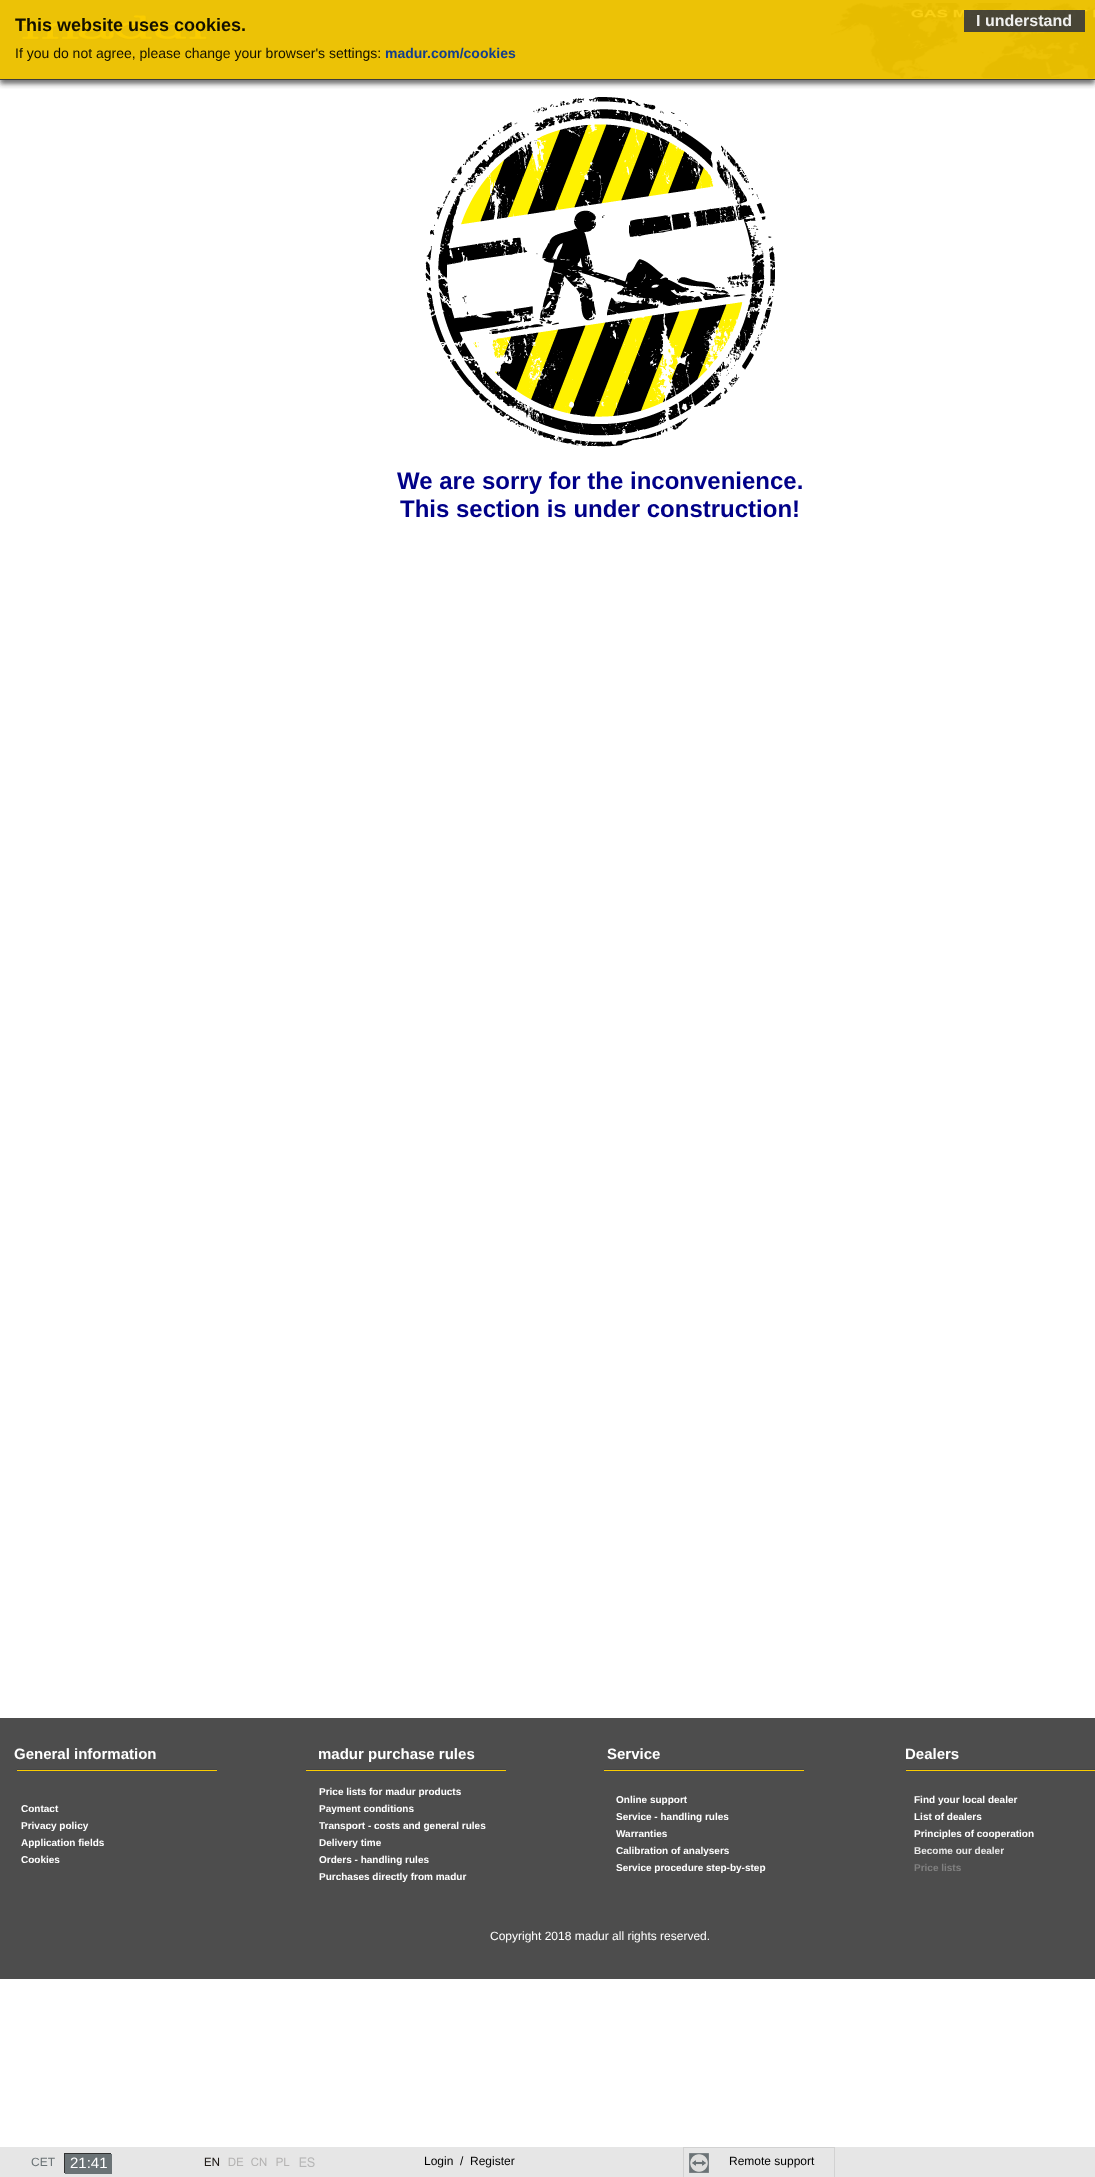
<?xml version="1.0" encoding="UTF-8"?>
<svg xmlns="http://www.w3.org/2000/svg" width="1095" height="2177">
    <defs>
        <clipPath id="clip1"><rect x="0" y="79" width="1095" height="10"/></clipPath>
        <filter id="blur1" x="-50%" y="-200%" width="200%" height="500%"><feGaussianBlur stdDeviation="2.5"/></filter>
    </defs>
    <rect width="100%" height="100%" fill="#FFFFFF"/>
    <rect x="0" y="79" width="1095" height="1" fill="#4D4D4D"/>
    <rect x="0" y="0" width="1095" height="79" fill="#ECC206"/>
    <image x="22" y="15" width="198" height="25" href="img_01.png"/>
    <image x="831" y="3" width="264" height="75" href="img_02.png"/>
    <g clip-path="url(#clip1)">
        <rect x="0" y="5" width="1095" height="79" fill="#323232" fill-opacity="0.69" filter="url(#blur1)"/>
    </g>
    <text x="15" y="31" font-family="Liberation Sans" font-size="18" font-weight="700" fill="#131000">This website uses cookies.</text>
    <rect x="964" y="10" width="121" height="22" fill="#3B3B3B" fill-opacity="0.92"/>
    <text x="976" y="26" font-family="Liberation Sans" font-size="16" font-weight="700" fill="#F0F0EF">I understand</text>
    <text x="15" y="58" font-family="Liberation Sans" font-size="14" fill="#131000">If you do not agree, please change your browser's settings:</text>
    <text x="385" y="58" font-family="Liberation Sans" font-size="14" font-weight="700" fill="#133E8D">madur.com/cookies</text>
    <image x="425" y="97" width="350" height="350" href="img_03.png"/>
    <text x="397" y="489" font-family="Liberation Sans" font-size="24" font-weight="700" fill="#000088">We are sorry for the inconvenience.</text>
    <text x="400" y="517" font-family="Liberation Sans" font-size="24" font-weight="700" fill="#000088">This section is under construction!</text>
    <rect x="0" y="2147" width="1095" height="30" fill="#E6E6E6"/>
    <text x="31" y="2166" font-family="Liberation Sans" font-size="12" fill="#6B7376">CET</text>
    <path d="M 64 2153 V 2173 H 65 V 2154 H 111 V 2153 Z" fill="#323232"/>
    <rect x="65" y="2154" width="47" height="20" fill="#6B7376"/>
    <text x="70" y="2168" font-family="Liberation Sans" font-size="15" fill="#FFFFFF">21:41</text>
    <image x="204" y="2157" width="16" height="9" href="img_04.png"/>
    <image x="228" y="2157" width="16" height="9" href="img_05.png"/>
    <image x="251" y="2157" width="16" height="9" href="img_06.png"/>
    <image x="276" y="2157" width="14" height="9" href="img_07.png"/>
    <image x="299" y="2157" width="16" height="10" href="img_08.png"/>
    <text x="424" y="2165" font-family="Liberation Sans" font-size="12" fill="#000000">Login</text>
    <text x="460" y="2165" font-family="Liberation Sans" font-size="12" fill="#000000">/</text>
    <text x="470" y="2165" font-family="Liberation Sans" font-size="12" fill="#000000">Register</text>
    <rect x="683.5" y="2147.5" width="151" height="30" fill="none" stroke="#D2D2D2"/>
    <image x="689" y="2153" width="20" height="20" href="img_09.png"/>
    <text x="729" y="2165" font-family="Liberation Sans" font-size="12" fill="#000000">Remote support</text>
    <rect x="0" y="1718" width="1095" height="261" fill="#4D4D4D"/>
    <text x="14" y="1759" font-family="Liberation Sans" font-size="15" font-weight="700" fill="#FFFFFF">General information</text>
    <rect x="17" y="1769" width="200" height="1" fill="#454545"/>
    <rect x="17" y="1770" width="200" height="1" fill="#FACC00"/>
    <text x="318" y="1759" font-family="Liberation Sans" font-size="15" font-weight="700" fill="#FFFFFF">madur purchase rules</text>
    <rect x="306" y="1769" width="200" height="1" fill="#454545"/>
    <rect x="306" y="1770" width="200" height="1" fill="#FACC00"/>
    <text x="607" y="1759" font-family="Liberation Sans" font-size="15" font-weight="700" fill="#FFFFFF">Service</text>
    <rect x="604" y="1769" width="200" height="1" fill="#454545"/>
    <rect x="604" y="1770" width="200" height="1" fill="#FACC00"/>
    <text x="905" y="1759" font-family="Liberation Sans" font-size="15" font-weight="700" fill="#FFFFFF">Dealers</text>
    <rect x="906" y="1769" width="189" height="1" fill="#454545"/>
    <rect x="906" y="1770" width="189" height="1" fill="#FACC00"/>
    <text font-family="Liberation Sans" font-size="10" font-weight="700" fill="#FFFFFF">
        <tspan x="21" y="1812">Contact</tspan>
        <tspan x="21" y="1829">Privacy policy</tspan>
        <tspan x="21" y="1846">Application fields</tspan>
        <tspan x="21" y="1863">Cookies</tspan>
    </text>
    <text font-family="Liberation Sans" font-size="10" font-weight="700" fill="#FFFFFF">
        <tspan x="319" y="1795">Price lists for madur products</tspan>
        <tspan x="319" y="1812">Payment conditions</tspan>
        <tspan x="319" y="1829">Transport - costs and general rules</tspan>
        <tspan x="319" y="1846">Delivery time</tspan>
        <tspan x="319" y="1863">Orders - handling rules</tspan>
        <tspan x="319" y="1880">Purchases directly from madur</tspan>
    </text>
    <text font-family="Liberation Sans" font-size="10" font-weight="700" fill="#FFFFFF">
        <tspan x="616" y="1803">Online support</tspan>
        <tspan x="616" y="1820">Service - handling rules</tspan>
        <tspan x="616" y="1837">Warranties</tspan>
        <tspan x="616" y="1854">Calibration of analysers</tspan>
        <tspan x="616" y="1871">Service procedure step-by-step</tspan>
    </text>
    <text font-family="Liberation Sans" font-size="10" font-weight="700" fill="#FFFFFF">
        <tspan x="914" y="1803">Find your local dealer</tspan>
        <tspan x="914" y="1820">List of dealers</tspan>
        <tspan x="914" y="1837">Principles of cooperation</tspan>
    </text>
    <text x="914" y="1854" font-family="Liberation Sans" font-size="10" font-weight="700" fill="#E8E8E8">Become our dealer</text>
    <text x="914" y="1871" font-family="Liberation Sans" font-size="10" font-weight="700" fill="#808080">Price lists</text>
    <text x="490" y="1940" font-family="Liberation Sans" font-size="12" fill="#FFFFFF">Copyright 2018 madur all rights reserved.</text>
</svg>
